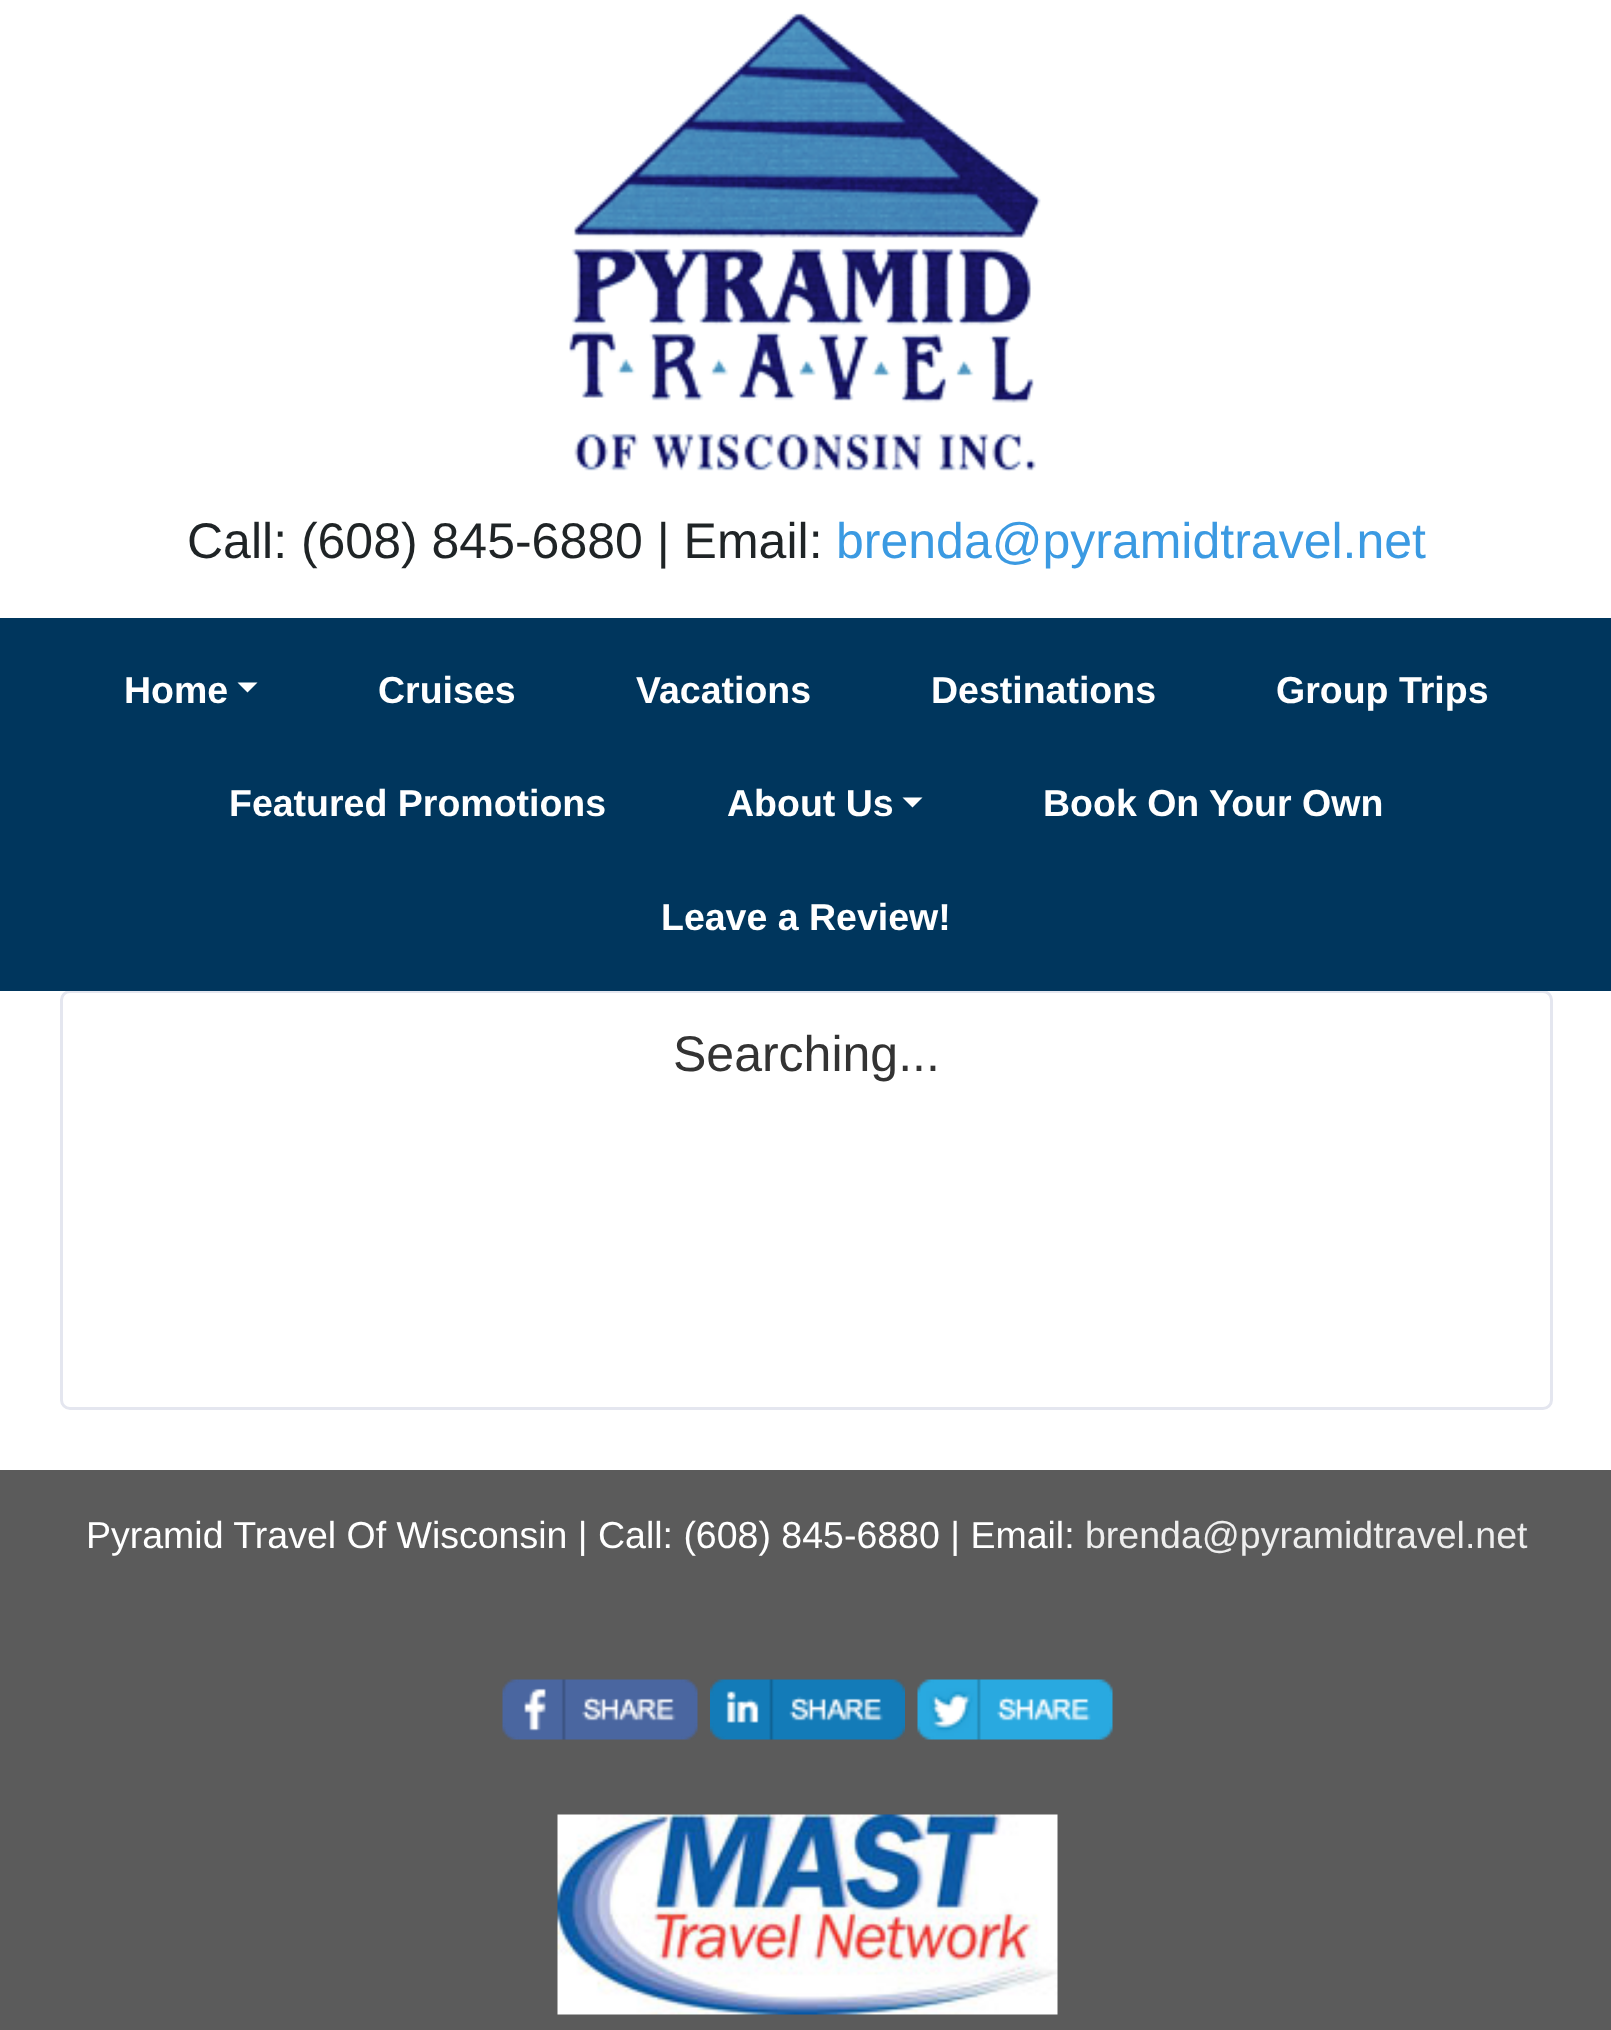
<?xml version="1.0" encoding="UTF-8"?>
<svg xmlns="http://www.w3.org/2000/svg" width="1611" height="2030">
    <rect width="100%" height="100%" fill="#FFFFFF"/>
    <image x="569" y="12" width="472" height="460" href="img_01.png"/>
    <text x="187" y="558" font-family="Liberation Sans" font-size="50" fill="#1F2426">Call: (608) 845-6880 | Email:</text>
    <text x="836" y="558" font-family="Liberation Sans" font-size="50" fill="#3B9AE2">brenda@pyramidtravel.net</text>
    <rect x="61.5" y="991.5" width="1490" height="417" rx="8.5" fill="none" stroke="#E4E6EF" stroke-width="3"/>
    <rect x="0" y="618" width="1611" height="373" fill="#00365D"/>
    <text x="124" y="703" font-family="Liberation Sans" font-size="37.5" font-weight="700" fill="#FFFFFF">Home</text>
    <path d="M 237.5 682.5 H 257.5 L 247.5 692.5 Z" fill="#FFFFFF"/>
    <text x="378" y="703" font-family="Liberation Sans" font-size="37.5" font-weight="700" fill="#FFFFFF">Cruises</text>
    <text x="636" y="703" font-family="Liberation Sans" font-size="37.5" font-weight="700" fill="#FFFFFF">Vacations</text>
    <text x="931" y="703" font-family="Liberation Sans" font-size="37.5" font-weight="700" fill="#FFFFFF">Destinations</text>
    <text x="1276" y="703" font-family="Liberation Sans" font-size="37.5" font-weight="700" fill="#FFFFFF">Group Trips</text>
    <text x="229" y="816" font-family="Liberation Sans" font-size="37.5" font-weight="700" fill="#FFFFFF">Featured Promotions</text>
    <text x="727" y="816" font-family="Liberation Sans" font-size="37.5" font-weight="700" fill="#FFFFFF">About Us</text>
    <path d="M 902.5 797.5 H 922.5 L 912.5 807.5 Z" fill="#FFFFFF"/>
    <text x="1043" y="816" font-family="Liberation Sans" font-size="37.5" font-weight="700" fill="#FFFFFF">Book On Your Own</text>
    <text x="661" y="930" font-family="Liberation Sans" font-size="37.5" font-weight="700" fill="#FFFFFF">Leave a Review!</text>
    <text x="673" y="1071" font-family="Liberation Sans" font-size="50" fill="#333333">Searching...</text>
    <rect x="0" y="1470" width="1611" height="560" fill="#5B5B5B"/>
    <text x="86" y="1548" font-family="Liberation Sans" font-size="37.5" fill="#FFFFFF">Pyramid Travel Of Wisconsin | Call: (608) 845-6880 | Email:</text>
    <text x="1085" y="1548" font-family="Liberation Sans" font-size="37.5" fill="#EEEEEE">brenda@pyramidtravel.net</text>
    <image x="502" y="1679" width="196" height="61" href="img_02.png"/>
    <image x="710" y="1679" width="195" height="61" href="img_03.png"/>
    <image x="917" y="1679" width="196" height="61" href="img_04.png"/>
    <image x="557" y="1814" width="501" height="201" href="img_05.png"/>
</svg>
